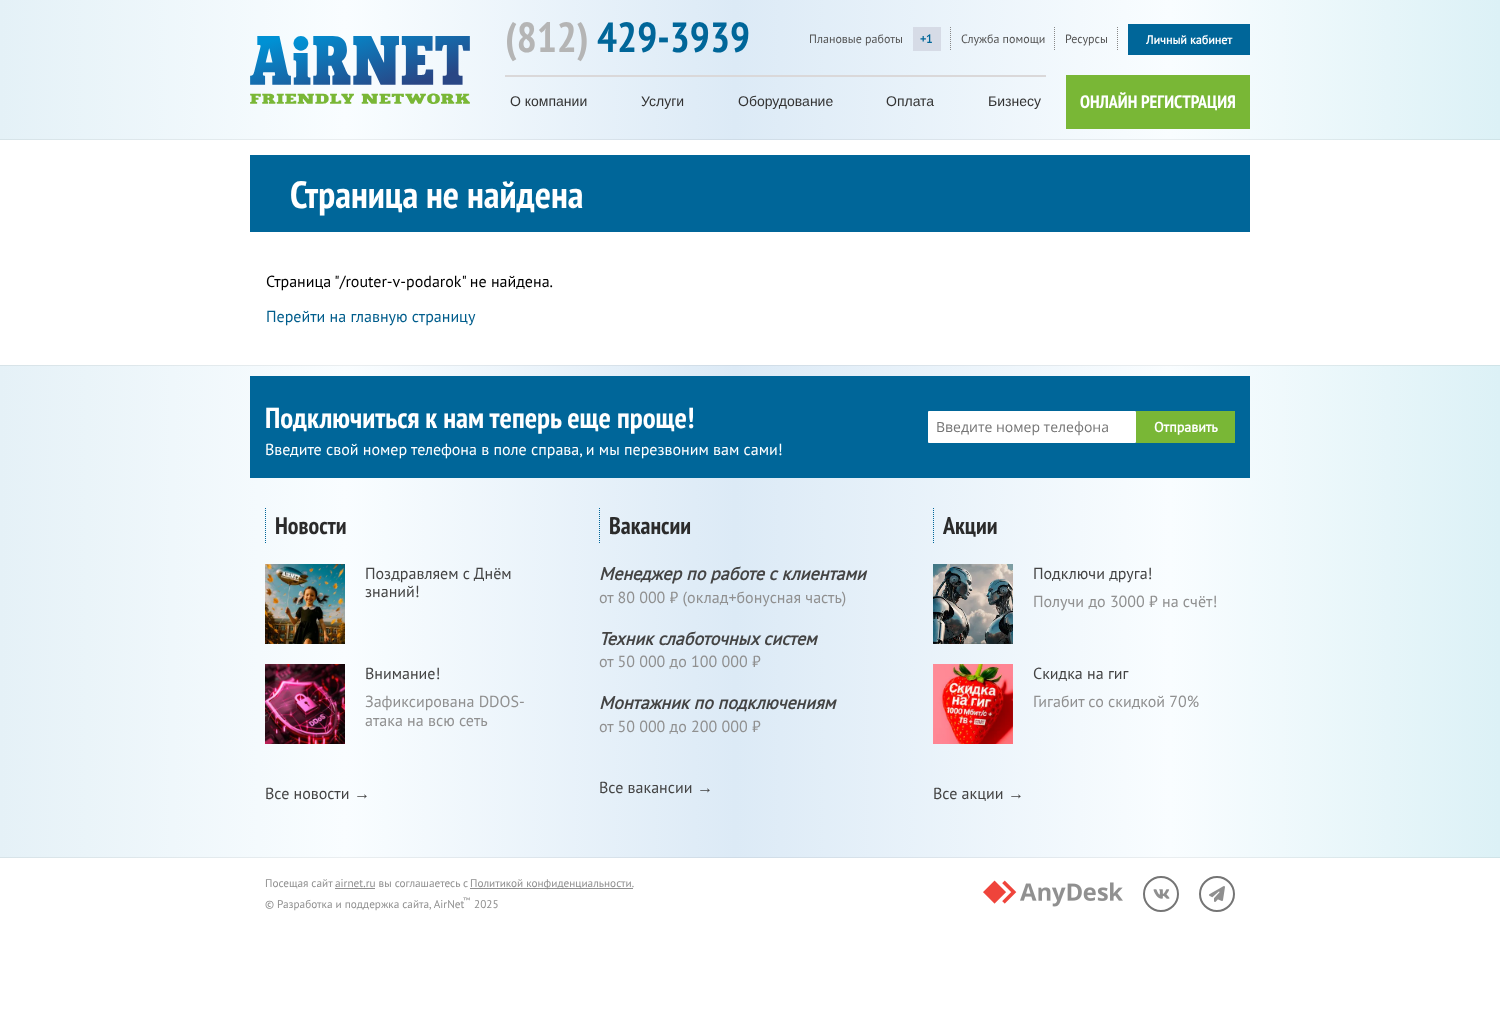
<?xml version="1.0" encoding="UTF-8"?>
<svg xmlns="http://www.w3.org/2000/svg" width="1500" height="1032">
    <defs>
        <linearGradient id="g1" gradientUnits="userSpaceOnUse" x1="0" y1="70" x2="1500" y2="69"><stop offset="0" stop-color="#E4F1F7"/><stop offset="0.23" stop-color="#F9FDFF"/><stop offset="0.49" stop-color="#DCEAF6"/><stop offset="0.78" stop-color="#F9FDFF"/><stop offset="1" stop-color="#DCF1F6"/></linearGradient>
        <linearGradient id="g2" gradientUnits="userSpaceOnUse" x1="0" y1="70" x2="1500" y2="69"><stop offset="0" stop-color="#D6E3E8"/><stop offset="0.23" stop-color="#EAEEF0"/><stop offset="0.49" stop-color="#CFDCE7"/><stop offset="0.78" stop-color="#EAEEF0"/><stop offset="1" stop-color="#CFE3E7"/></linearGradient>
        <linearGradient id="g3" gradientUnits="userSpaceOnUse" x1="0" y1="612" x2="1500" y2="612"><stop offset="0" stop-color="#E5F1F7"/><stop offset="0.23" stop-color="#F9FDFF"/><stop offset="0.49" stop-color="#DCEAF6"/><stop offset="0.78" stop-color="#F9FDFF"/><stop offset="1" stop-color="#DCF1F6"/></linearGradient>
        <linearGradient id="g4" gradientUnits="userSpaceOnUse" x1="0" y1="612" x2="1500" y2="612"><stop offset="0" stop-color="#D7E3E8"/><stop offset="0.23" stop-color="#EAEEF0"/><stop offset="0.49" stop-color="#CFDCE7"/><stop offset="0.78" stop-color="#EAEEF0"/><stop offset="1" stop-color="#CFE3E7"/></linearGradient>
    </defs>
    <rect width="100%" height="100%" fill="#FFFFFF"/>
    <rect x="0" y="0" width="1500" height="139" fill="url(#g1)"/>
    <rect x="0" y="139" width="1500" height="1" fill="url(#g2)"/>
    <image x="250" y="36" width="220" height="68" href="img_01.png"/>
    <text x="505" y="52" font-family="PT Sans Narrow" font-size="42" font-weight="700" fill="#B5B5B5">(812)</text>
    <text x="597" y="52" font-family="PT Sans Narrow" font-size="42" font-weight="700" fill="#006699">429-3939</text>
    <text x="809" y="43" font-family="PT Sans" font-size="12" fill="#545454">Плановые работы</text>
    <rect x="913" y="27" width="28" height="24" fill="#D6DBE6"/>
    <text x="920" y="43" font-family="PT Sans" font-size="12" font-weight="700" fill="#006699">+1</text>
    <path d="M 950.5 27 V 51" fill="none" stroke="#888888" stroke-dasharray="1 1"/>
    <text x="961" y="43" font-family="PT Sans" font-size="12" fill="#545454">Служба помощи</text>
    <path d="M 1054.5 27 V 51" fill="none" stroke="#888888" stroke-dasharray="1 1"/>
    <text x="1065" y="43" font-family="PT Sans" font-size="12" fill="#545454">Ресурсы</text>
    <path d="M 1117.5 27 V 51" fill="none" stroke="#888888" stroke-dasharray="1 1"/>
    <rect x="1128" y="24" width="122" height="31" fill="#006699"/>
    <text x="1146" y="44" font-family="PT Sans" font-size="12" font-weight="700" fill="#FFFFFF">Личный кабинет</text>
    <rect x="505" y="75" width="541" height="2" fill="#DAD8D9"/>
    <text x="510" y="106" font-family="Liberation Sans" font-size="14" fill="#333333">О компании</text>
    <text x="641" y="106" font-family="Liberation Sans" font-size="14" fill="#333333">Услуги</text>
    <text x="738" y="106" font-family="Liberation Sans" font-size="14" fill="#333333">Оборудование</text>
    <text x="886" y="106" font-family="Liberation Sans" font-size="14" fill="#333333">Оплата</text>
    <text x="988" y="106" font-family="Liberation Sans" font-size="14" fill="#333333">Бизнесу</text>
    <rect x="1066" y="75" width="184" height="54" fill="#79B736"/>
    <text x="1080" y="108" font-family="PT Sans Narrow" font-size="18" font-weight="700" fill="#FFFFFF">ОНЛАЙН РЕГИСТРАЦИЯ</text>
    <rect x="250" y="155" width="1000" height="77" fill="#006699"/>
    <text x="290" y="208" font-family="PT Sans Narrow" font-size="38" font-weight="700" fill="#FFFFFF">Страница не найдена</text>
    <text x="266" y="287" font-family="PT Sans" font-size="16" fill="#000000">Страница "/router-v-podarok" не найдена.</text>
    <text x="266" y="322" font-family="PT Sans" font-size="16" fill="#005D8C">Перейти на главную страницу</text>
    <rect x="0" y="366" width="1500" height="491" fill="url(#g3)"/>
    <rect x="0" y="857" width="1500" height="1" fill="url(#g4)"/>
    <rect x="0" y="365" width="1500" height="1" fill="url(#g4)"/>
    <rect x="250" y="376" width="1000" height="102" fill="#006699"/>
    <text x="265" y="428" font-family="PT Sans Narrow" font-size="29" font-weight="700" fill="#FFFFFF">Подключиться к нам теперь еще проще!</text>
    <text x="265" y="455" font-family="PT Sans" font-size="16" fill="#FFFFFF">Введите свой номер телефона в поле справа, и мы перезвоним вам сами!</text>
    <rect x="928" y="411" width="208" height="32" rx="1" fill="#FFFFFF"/>
    <text x="936" y="432" font-family="Open Sans" font-size="14" fill="#757575">Введите номер телефона</text>
    <rect x="1136" y="411" width="99" height="32" fill="#79B736"/>
    <text x="1154" y="432" font-family="PT Sans" font-size="14" font-weight="700" fill="#FFFFFF">Отправить</text>
    <path d="M 265.5 508 V 544" fill="none" stroke="#006699" stroke-dasharray="1 1"/>
    <text x="275" y="534" font-family="PT Sans Narrow" font-size="24" font-weight="700" fill="#2B2B2B">Новости</text>
    <image x="265" y="564" width="80" height="80" href="img_02.png"/>
    <text font-family="PT Sans" font-size="16" fill="#444444">
        <tspan x="365" y="579">Поздравляем с Днём</tspan>
        <tspan x="365" y="597">знаний!</tspan>
    </text>
    <image x="265" y="664" width="80" height="80" href="img_03.png"/>
    <text x="365" y="679" font-family="PT Sans" font-size="16" fill="#444444">Внимание!</text>
    <text font-family="PT Sans" font-size="16" fill="#909090">
        <tspan x="365" y="707">Зафиксирована DDOS-</tspan>
        <tspan x="365" y="726">атака на всю сеть</tspan>
    </text>
    <text x="265" y="799" font-family="PT Sans" font-size="16" fill="#444444">Все новости</text>
    <text x="354" y="799" font-family="Liberation Serif" font-size="16" fill="#444444">→</text>
    <path d="M 599.5 508 V 544" fill="none" stroke="#006699" stroke-dasharray="1 1"/>
    <text x="609" y="534" font-family="PT Sans Narrow" font-size="24" font-weight="700" fill="#2B2B2B">Вакансии</text>
    <text x="599" y="580" font-family="PT Sans" font-size="18" font-weight="700" font-style="italic" fill="#444444">Менеджер по работе с клиентами</text>
    <text x="599" y="603" font-family="PT Sans" font-size="16" fill="#909090">от 80 000 ₽ (оклад+бонусная часть)</text>
    <text x="599" y="645" font-family="PT Sans" font-size="18" font-weight="700" font-style="italic" fill="#444444">Техник слаботочных систем</text>
    <text x="599" y="667" font-family="PT Sans" font-size="16" fill="#909090">от 50 000 до 100 000 ₽</text>
    <text x="599" y="709" font-family="PT Sans" font-size="18" font-weight="700" font-style="italic" fill="#444444">Монтажник по подключениям</text>
    <text x="599" y="732" font-family="PT Sans" font-size="16" fill="#909090">от 50 000 до 200 000 ₽</text>
    <text x="599" y="793" font-family="PT Sans" font-size="16" fill="#444444">Все вакансии</text>
    <text x="697" y="793" font-family="Liberation Serif" font-size="16" fill="#444444">→</text>
    <path d="M 933.5 508 V 544" fill="none" stroke="#006699" stroke-dasharray="1 1"/>
    <text x="943" y="534" font-family="PT Sans Narrow" font-size="24" font-weight="700" fill="#2B2B2B">Акции</text>
    <image x="933" y="564" width="80" height="80" href="img_04.png"/>
    <text x="1033" y="579" font-family="PT Sans" font-size="16" fill="#444444">Подключи друга!</text>
    <text x="1033" y="607" font-family="PT Sans" font-size="16" fill="#909090">Получи до 3000 ₽ на счёт!</text>
    <image x="933" y="664" width="80" height="80" href="img_05.png"/>
    <text x="1033" y="679" font-family="PT Sans" font-size="16" fill="#444444">Скидка на гиг</text>
    <text x="1033" y="707" font-family="PT Sans" font-size="16" fill="#909090">Гигабит со скидкой 70%</text>
    <text x="933" y="799" font-family="PT Sans" font-size="16" fill="#444444">Все акции</text>
    <text x="1008" y="799" font-family="Liberation Serif" font-size="16" fill="#444444">→</text>
    <text x="265" y="887" font-family="PT Sans" font-size="11.25" fill="#909090">Посещая сайт</text>
    <text x="335" y="887" font-family="PT Sans" font-size="11.25" fill="#909090">airnet.ru вы соглашаетесь с</text>
    <rect x="335" y="888" width="40" height="1" fill="#909090"/>
    <rect x="470" y="888" width="163" height="1" fill="#909090"/>
    <text x="470" y="887" font-family="PT Sans" font-size="11.25" fill="#909090">Политикой конфиденциальности.</text>
    <text x="265" y="908" font-family="PT Sans" font-size="11.25" fill="#909090">© Разработка и поддержка сайта, AirNet</text>
    <text x="463" y="903" font-family="PT Sans" font-size="8" fill="#909090">™</text>
    <text x="474" y="908" font-family="PT Sans" font-size="11.25" fill="#909090">2025</text>
    <image x="983" y="880" width="140" height="27" href="img_06.png"/>
    <circle cx="1161" cy="894" r="17" fill="none" stroke="#757575" stroke-width="2"/>
    <image x="1153" y="889" width="17" height="10" href="img_07.png"/>
    <circle cx="1217" cy="894" r="17" fill="none" stroke="#757575" stroke-width="2"/>
    <image x="1209" y="886" width="16" height="16" href="img_08.png"/>
</svg>
